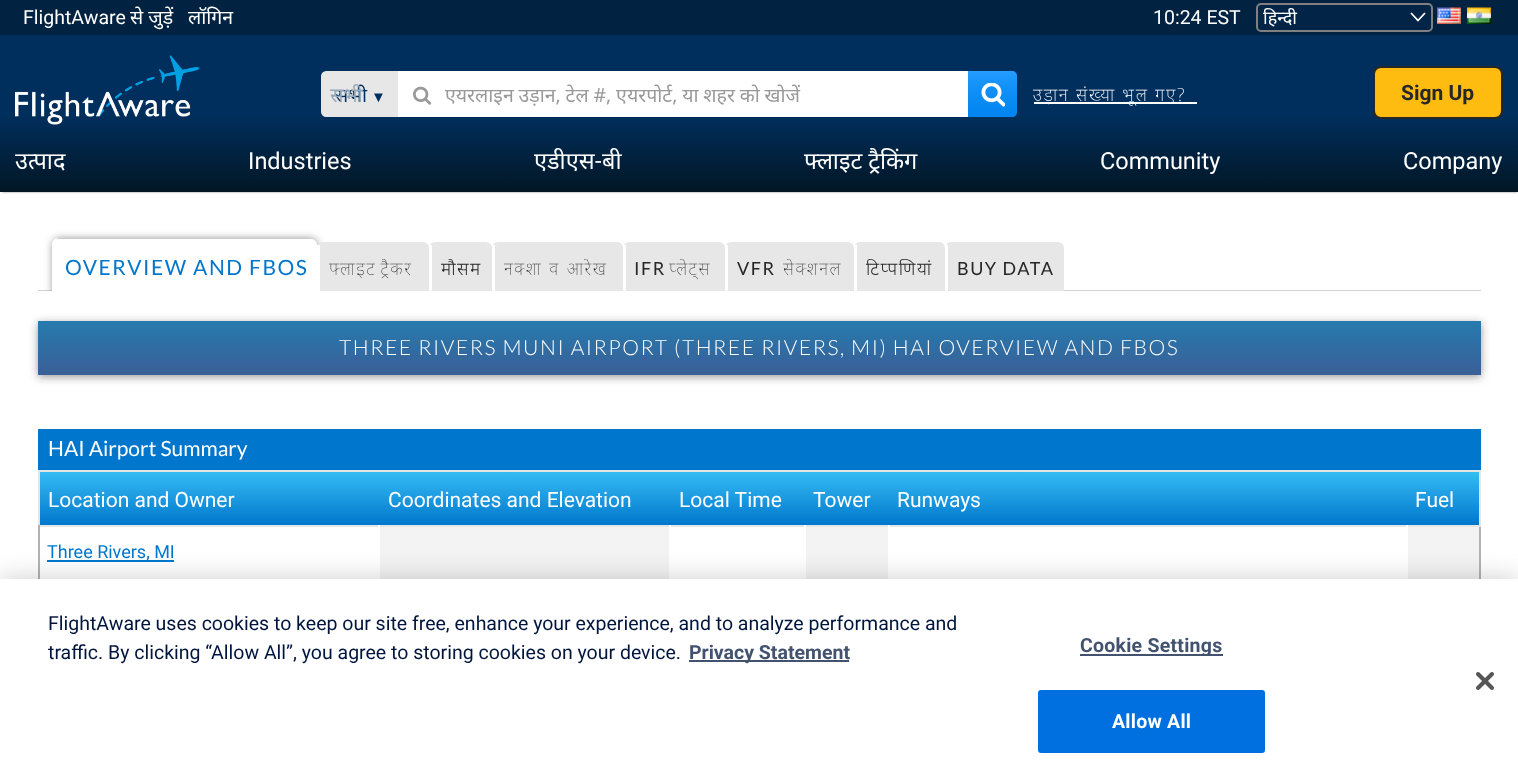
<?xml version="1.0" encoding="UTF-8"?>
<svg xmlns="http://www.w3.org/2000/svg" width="1518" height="783">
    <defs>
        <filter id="blur1" x="-50%" y="-200%" width="200%" height="500%"><feGaussianBlur stdDeviation="1"/></filter>
        <linearGradient id="g1" gradientUnits="userSpaceOnUse" x1="759" y1="0" x2="759" y2="192"><stop offset="0" stop-color="#002F5D"/><stop offset="0.6" stop-color="#002F5D"/><stop offset="1" stop-color="#021624"/></linearGradient>
        <linearGradient id="g2" gradientUnits="userSpaceOnUse" x1="993" y1="117" x2="993" y2="71"><stop offset="0" stop-color="#0084F0"/><stop offset="0.66" stop-color="#1291F8"/><stop offset="1" stop-color="#249DFF"/></linearGradient>
        <clipPath id="clip1"><rect x="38" y="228" width="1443" height="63"/></clipPath>
        <filter id="blur2" x="-50%" y="-200%" width="200%" height="500%"><feGaussianBlur stdDeviation="4"/></filter>
        <clipPath id="clip2"><rect x="38" y="228" width="1443" height="63"/></clipPath>
        <linearGradient id="g3" gradientUnits="userSpaceOnUse" x1="38" y1="321" x2="38" y2="375"><stop offset="0" stop-color="#267BAE"/><stop offset="1" stop-color="#3A5F97"/></linearGradient>
        <linearGradient id="g4" gradientUnits="userSpaceOnUse" x1="41" y1="471" x2="41" y2="525"><stop offset="0" stop-color="#37BDF5"/><stop offset="1" stop-color="#0077CC"/></linearGradient>
        <filter id="blur3" x="-50%" y="-200%" width="200%" height="500%"><feGaussianBlur stdDeviation="13.5"/></filter>
    </defs>
    <rect width="100%" height="100%" fill="#FFFFFF"/>
    <rect x="2" y="3" width="1515" height="189" fill="#888888" filter="url(#blur1)"/>
    <rect x="0" y="35" width="1518" height="157" fill="url(#g1)"/>
    <rect x="0" y="0" width="1518" height="35" fill="#022241"/>
    <text x="23" y="24" font-family="Roboto" font-size="19.5" fill="#FFFFFF">FlightAware</text>
    <text x="130" y="24" font-family="Noto Sans" font-size="19.5" fill="#FFFFFF">से जुड़ें</text>
    <text x="188" y="24" font-family="Noto Sans" font-size="19.5" fill="#FFFFFF">लॉगिन</text>
    <text x="1153" y="24" font-family="Roboto" font-size="19.5" fill="#FFFFFF">10:24 EST</text>
    <rect x="1256" y="3" width="177" height="29" rx="5" fill="#022547"/>
    <path d="M 1411 13 L 1418 20.5 L 1425 13" fill="none" stroke="#FFFFFF" stroke-width="1.8"/>
    <rect x="1257" y="4" width="175" height="27" rx="4" fill="none" stroke="#808080" stroke-width="2"/>
    <text x="1263" y="24" font-family="Noto Sans" font-size="18" fill="#FFFFFF">हिन्दी</text>
    <image x="1437" y="7" width="24" height="17" href="img_01.png"/>
    <image x="1467" y="7" width="24" height="17" href="img_02.png"/>
    <image x="15" y="55" width="185" height="70" href="img_03.png"/>
    <path d="M 326 72 H 397 V 116 H 326 C 324 116 322 114 322 112 V 76 C 322 74 324 72 326 72 Z" fill="#E7E7E7" stroke="#E7E7E7" stroke-width="2"/>
    <text x="335" y="102" font-family="Noto Sans" font-size="19.5" fill="#002F5D">सभी</text>
    <text x="330" y="102" font-family="Noto Sans" font-size="20" fill="#99A9B8">सभी</text>
    <text x="371" y="102" font-family="Liberation Sans" font-size="15" fill="#002F5D">▼</text>
    <rect x="398" y="71" width="570" height="46" fill="#FFFFFF"/>
    <image x="413" y="86" width="19" height="19" href="img_04.png"/>
    <text x="445" y="102" word-spacing="-0.25" font-family="Noto Sans" font-size="19.5" fill="#999999">एयरलाइन उड़ान, टेल #, एयरपोर्ट, या शहर को खोजें</text>
    <path d="M 968 71 H 1012 C 1015 71 1017 73 1017 76 V 112 C 1017 115 1015 117 1012 117 H 968 Z" fill="url(#g2)"/>
    <image x="981" y="83" width="24" height="24" href="img_05.png"/>
    <rect x="1034" y="102" width="163" height="2" fill="#FFFFFF"/>
    <text x="1033" y="101" font-family="Noto Sans" font-size="18" font-weight="200" letter-spacing="1.75" fill="#FFFFFF">उड़ान संख्या भूल गए?</text>
    <rect x="1374" y="67" width="128" height="51" rx="7" fill="#FEBC11" stroke="#272727" stroke-width="2"/>
    <text x="1401" y="100" font-family="Roboto" font-size="21" font-weight="700" fill="#272727">Sign Up</text>
    <text x="15" y="169" font-family="Noto Sans" font-size="23.5" fill="#FFFFFF">उत्पाद</text>
    <text x="248" y="169" font-family="Roboto" font-size="23.5" fill="#FFFFFF">Industries</text>
    <text x="534" y="169" font-family="Noto Sans" font-size="23.5" fill="#FFFFFF">एडीएस</text>
    <text x="595" y="169" font-family="Roboto" font-size="23.5" fill="#FFFFFF">-</text>
    <text x="602" y="169" font-family="Noto Sans" font-size="23.5" fill="#FFFFFF">बी</text>
    <text x="804" y="169" word-spacing="-0.25" font-family="Noto Sans" font-size="23.5" fill="#FFFFFF">फ्लाइट ट्रैकिंग</text>
    <text x="1100" y="169" font-family="Roboto" font-size="23.5" fill="#FFFFFF">Community</text>
    <text x="1403" y="169" font-family="Roboto" font-size="23.5" fill="#FFFFFF">Company</text>
    <rect x="38" y="290" width="1443" height="1" fill="#D1D1D1"/>
    <g clip-path="url(#clip1)">
        <rect x="53" y="239" width="264" height="58" rx="6" fill="#888888" filter="url(#blur2)"/>
    </g>
    <path d="M 59 239 H 311 C 314.5 239 317 241.5 317 245 V 291 H 53 V 245 C 53 241.5 55.5 239 59 239 Z" fill="#FFFFFF"/>
    <text x="65" y="275" font-family="Lato" font-size="21" letter-spacing="1.5" fill="#0077CC">OVERVIEW AND FBOS</text>
    <g clip-path="url(#clip2)">
        <path d="M 58 238 H 310 C 314 238 316 241 316 244 V 291 C 316 294 314 297 310 297 H 58 C 55 297 52 294 52 291 V 244 C 52 241 55 238 58 238 Z M 58 238 H 310 C 314 238 316 241 316 244 V 291 C 316 293 314 294 310 294 H 58 C 57 294 56 293 56 291 V 244 C 56 241 57 238 58 238 Z" fill="#FFFFFF" fill-rule="evenodd"/>
        <rect x="317" y="242" width="112" height="52" rx="6" fill="#E7E7E7"/>
    </g>
    <text x="329" y="275" word-spacing="-2" font-family="Noto Sans" font-size="18" font-weight="100" letter-spacing="1.5" fill="#272727">फ्लाइट ट्रैकर</text>
    <rect x="317" y="245" width="3" height="46" fill="#FFFFFF"/>
    <g clip-path="url(#clip2)">
        <rect x="429" y="242" width="63" height="52" rx="6" fill="#E7E7E7"/>
    </g>
    <text x="441" y="275" font-family="Noto Sans" font-size="18" font-weight="300" letter-spacing="1.5" fill="#272727">मौसम</text>
    <rect x="429" y="245" width="3" height="46" fill="#FFFFFF"/>
    <g clip-path="url(#clip2)">
        <rect x="492" y="242" width="131" height="52" rx="6" fill="#E7E7E7"/>
    </g>
    <text x="504" y="275" word-spacing="1" font-family="Noto Sans" font-size="18" font-weight="100" letter-spacing="1.5" fill="#272727">नक्शा व आरेख</text>
    <rect x="492" y="245" width="3" height="46" fill="#FFFFFF"/>
    <g clip-path="url(#clip2)">
        <rect x="623" y="242" width="102" height="52" rx="6" fill="#E7E7E7"/>
    </g>
    <text x="634" y="275" font-family="Lato" font-size="18" letter-spacing="1.5" fill="#272727">IFR</text>
    <rect x="623" y="245" width="3" height="46" fill="#FFFFFF"/>
    <text x="669" y="275" font-family="Noto Sans" font-size="18" font-weight="100" letter-spacing="1.5" fill="#272727">प्लेट्स</text>
    <g clip-path="url(#clip2)">
        <rect x="725" y="242" width="129" height="52" rx="6" fill="#E7E7E7"/>
    </g>
    <text x="737" y="275" font-family="Lato" font-size="18" letter-spacing="1.5" fill="#272727">VFR</text>
    <rect x="725" y="245" width="3" height="46" fill="#FFFFFF"/>
    <text x="783" y="275" font-family="Noto Sans" font-size="18" font-weight="100" letter-spacing="1.5" fill="#272727">सेक्शनल</text>
    <g clip-path="url(#clip2)">
        <rect x="854" y="242" width="91" height="52" rx="6" fill="#E7E7E7"/>
    </g>
    <text x="866" y="275" font-family="Noto Sans" font-size="18" font-weight="300" letter-spacing="1.5" fill="#272727">टिप्पणियां</text>
    <rect x="854" y="245" width="3" height="46" fill="#FFFFFF"/>
    <g clip-path="url(#clip2)">
        <rect x="945" y="242" width="119" height="52" rx="6" fill="#E7E7E7"/>
    </g>
    <text x="957" y="275" font-family="Lato" font-size="18" letter-spacing="1.5" fill="#272727">BUY DATA</text>
    <rect x="945" y="245" width="3" height="46" fill="#FFFFFF"/>
    <rect x="38" y="323" width="1443" height="54" fill="#323232" fill-opacity="0.5" filter="url(#blur2)"/>
    <rect x="38" y="321" width="1443" height="54" fill="url(#g3)"/>
    <text x="339" y="355" font-family="Lato" font-size="21" font-weight="300" letter-spacing="1.5" fill="#FFFFFF">THREE RIVERS MUNI AIRPORT (THREE RIVERS, MI) HAI OVERVIEW AND FBOS</text>
    <rect x="38" y="429" width="1443" height="41" fill="#0077CC"/>
    <text x="48" y="456" font-family="Lato" font-size="21" fill="#FFFFFF">HAI Airport Summary</text>
    <rect x="1479" y="527" width="2" height="52" fill="#B2B2B2"/>
    <rect x="40" y="472" width="1439" height="53" fill="url(#g4)"/>
    <rect x="38" y="470" width="1443" height="2" fill="#E5E5E4"/>
    <rect x="1479" y="470" width="2" height="57" fill="#E5E5E4"/>
    <rect x="38" y="525" width="1443" height="2" fill="#E5E5E4"/>
    <rect x="38" y="470" width="2" height="57" fill="#E5E5E4"/>
    <text x="48" y="507" font-family="Roboto" font-size="21" fill="#FFFFFF">Location and Owner</text>
    <text x="388" y="507" font-family="Roboto" font-size="21" fill="#FFFFFF">Coordinates and Elevation</text>
    <text x="679" y="507" font-family="Roboto" font-size="21" fill="#FFFFFF">Local Time</text>
    <text x="813" y="507" font-family="Roboto" font-size="21" fill="#FFFFFF">Tower</text>
    <text x="897" y="507" font-family="Roboto" font-size="21" fill="#FFFFFF">Runways</text>
    <text x="1415" y="507" font-family="Roboto" font-size="21" fill="#FFFFFF">Fuel</text>
    <rect x="38" y="525" width="2" height="54" fill="#B2B2B2"/>
    <rect x="47" y="560" width="127" height="2" fill="#0077CC"/>
    <text x="47" y="558" font-family="Roboto" font-size="18" fill="#0077CC">Three Rivers, MI</text>
    <rect x="380" y="527" width="289" height="52" fill="#F3F3F3"/>
    <rect x="378" y="525" width="2" height="2" fill="#FFFFFF"/>
    <rect x="669" y="525" width="2" height="2" fill="#FFFFFF"/>
    <rect x="806" y="527" width="82" height="52" fill="#F3F3F3"/>
    <rect x="804" y="525" width="2" height="2" fill="#FFFFFF"/>
    <rect x="888" y="525" width="2" height="2" fill="#FFFFFF"/>
    <rect x="1408" y="527" width="71" height="52" fill="#F3F3F3"/>
    <rect x="1406" y="525" width="2" height="2" fill="#FFFFFF"/>
    <rect x="0" y="579" width="1518" height="204" fill="#000000" fill-opacity="0.2" filter="url(#blur3)"/>
    <rect x="0" y="579" width="1518" height="204" fill="#FFFFFF"/>
    <text font-family="Roboto" font-size="19.5" fill="#00153D">
        <tspan x="48" y="630">FlightAware uses cookies to keep our site free, enhance your experience, and to analyze performance and</tspan>
        <tspan x="48" y="659">traffic. By clicking “Allow All”, you agree to storing cookies on your device.</tspan>
    </text>
    <rect x="689" y="660" width="160" height="2" fill="#42526F"/>
    <text x="689" y="659" font-family="Roboto" font-size="19.5" font-weight="700" fill="#42526F">Privacy Statement</text>
    <rect x="1080" y="654" width="143" height="2" fill="#42526F"/>
    <text x="1080" y="652" font-family="Roboto" font-size="19.5" font-weight="700" letter-spacing="0.25" fill="#42526F">Cookie Settings</text>
    <rect x="1039" y="691" width="225" height="61" rx="2" fill="#0070E0" stroke="#0070E0" stroke-width="2"/>
    <text x="1112" y="728" font-family="Roboto" font-size="19.5" font-weight="700" letter-spacing="0.25" fill="#FFFFFF">Allow All</text>
    <image x="1476" y="672" width="18" height="18" href="img_06.png"/>
</svg>
